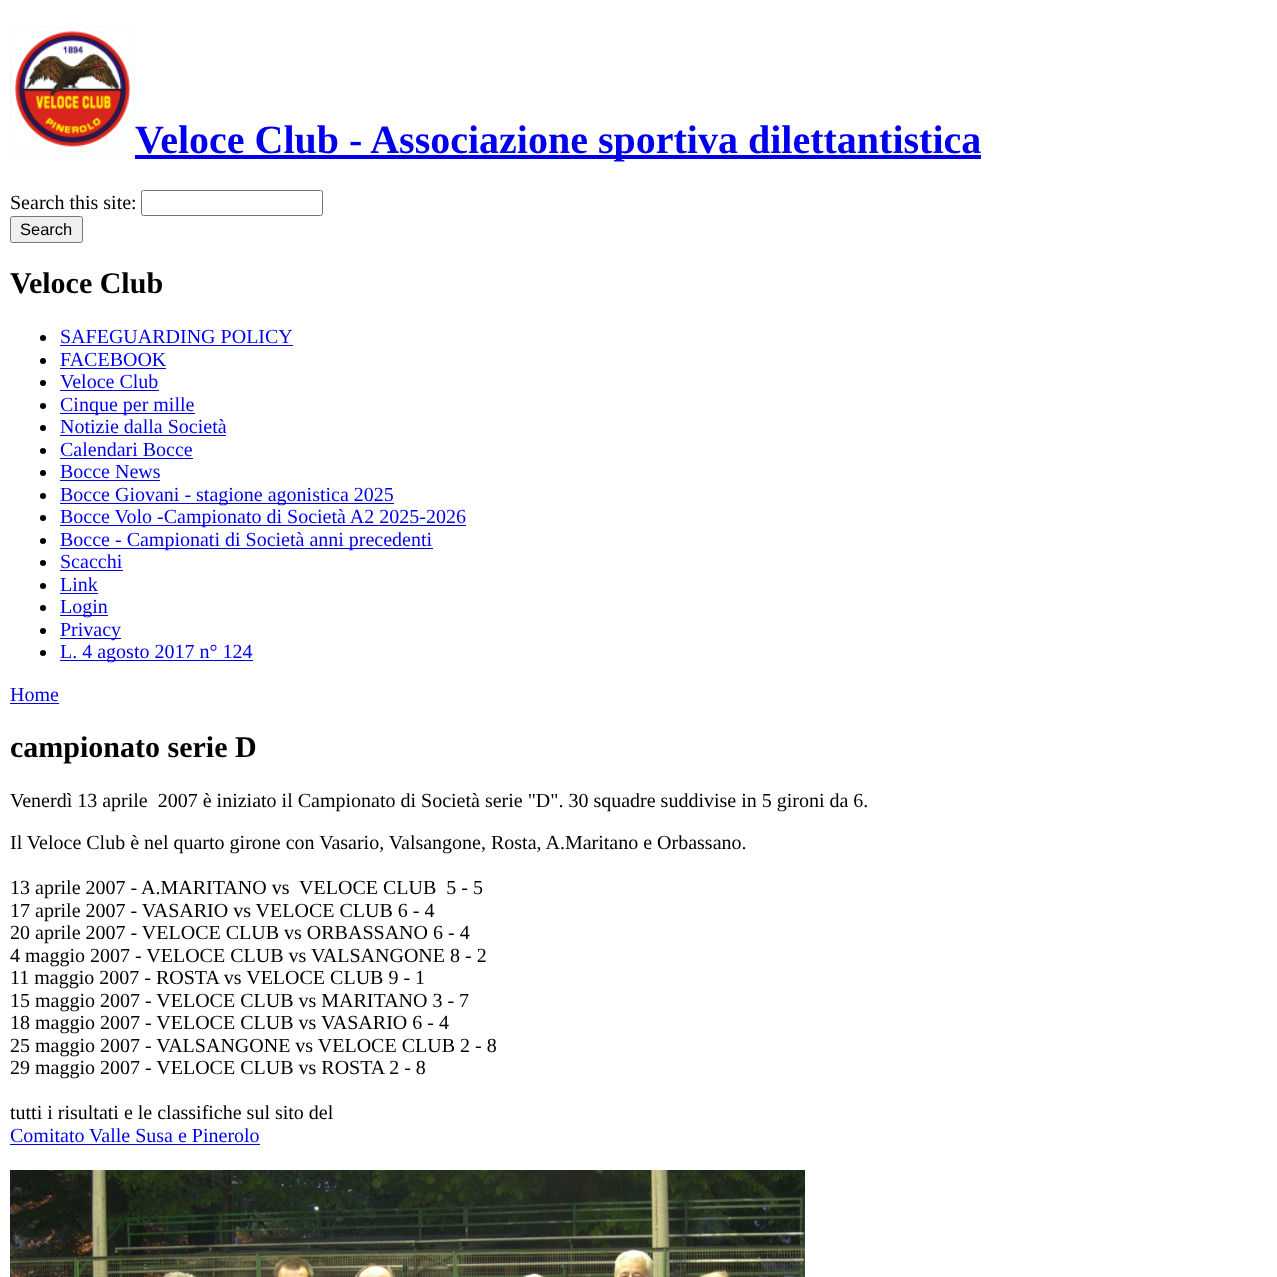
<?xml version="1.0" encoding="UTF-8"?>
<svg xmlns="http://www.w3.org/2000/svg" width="1277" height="1277">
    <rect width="100%" height="100%" fill="#FFFFFF"/>
    <image x="10" y="26" width="125" height="127" href="img_01.png"/>
    <rect x="135" y="155" width="846" height="4" fill="#0000EE"/>
    <text x="135" y="153" font-family="Liberation Serif" font-size="40" font-weight="700" fill="#0000EE">Veloce Club - Associazione sportiva dilettantistica</text>
    <text x="10" y="209" font-family="Liberation Serif" font-size="20" fill="#000000">Search this site:</text>
    <rect x="141.5" y="190.5" width="181" height="25" rx="2" fill="none" stroke="#767676"/>
    <rect x="10.5" y="216.5" width="72" height="26" rx="2" fill="#EFEFEF" stroke="#767676"/>
    <text x="20" y="235" font-family="Liberation Sans" font-size="16.5" fill="#000000">Search</text>
    <text x="10" y="293" font-family="Liberation Serif" font-size="30" font-weight="700" fill="#000000">Veloce Club</text>
    <circle cx="43" cy="338" r="3" fill="#000000"/>
    <text x="60" y="343" font-family="Liberation Serif" font-size="20" fill="#0000EE">SAFEGUARDING POLICY</text>
    <rect x="60" y="345" width="233" height="1" fill="#0000EE"/>
    <circle cx="43" cy="361" r="3" fill="#000000"/>
    <text x="60" y="366" font-family="Liberation Serif" font-size="20" fill="#0000EE">FACEBOOK</text>
    <rect x="60" y="368" width="106" height="1" fill="#0000EE"/>
    <circle cx="43" cy="383" r="3" fill="#000000"/>
    <text x="60" y="388" font-family="Liberation Serif" font-size="20" fill="#0000EE">Veloce Club</text>
    <rect x="60" y="390" width="99" height="1" fill="#0000EE"/>
    <circle cx="43" cy="406" r="3" fill="#000000"/>
    <rect x="60" y="413" width="135" height="1" fill="#0000EE"/>
    <text x="60" y="411" font-family="Liberation Serif" font-size="20" fill="#0000EE">Cinque per mille</text>
    <circle cx="43" cy="428" r="3" fill="#000000"/>
    <text x="60" y="433" font-family="Liberation Serif" font-size="20" fill="#0000EE">Notizie dalla Società</text>
    <rect x="60" y="435" width="166" height="1" fill="#0000EE"/>
    <circle cx="43" cy="451" r="3" fill="#000000"/>
    <text x="60" y="456" font-family="Liberation Serif" font-size="20" fill="#0000EE">Calendari Bocce</text>
    <rect x="60" y="458" width="133" height="1" fill="#0000EE"/>
    <circle cx="43" cy="473" r="3" fill="#000000"/>
    <text x="60" y="478" font-family="Liberation Serif" font-size="20" fill="#0000EE">Bocce News</text>
    <rect x="60" y="480" width="100" height="1" fill="#0000EE"/>
    <circle cx="43" cy="496" r="3" fill="#000000"/>
    <rect x="60" y="503" width="334" height="1" fill="#0000EE"/>
    <text x="60" y="501" font-family="Liberation Serif" font-size="20" fill="#0000EE">Bocce Giovani - stagione agonistica 2025</text>
    <circle cx="43" cy="518" r="3" fill="#000000"/>
    <rect x="60" y="525" width="406" height="1" fill="#0000EE"/>
    <text x="60" y="523" font-family="Liberation Serif" font-size="20" fill="#0000EE">Bocce Volo -Campionato di Società A2 2025-2026</text>
    <circle cx="43" cy="541" r="3" fill="#000000"/>
    <rect x="60" y="548" width="373" height="1" fill="#0000EE"/>
    <text x="60" y="546" font-family="Liberation Serif" font-size="20" fill="#0000EE">Bocce - Campionati di Società anni precedenti</text>
    <circle cx="43" cy="563" r="3" fill="#000000"/>
    <text x="60" y="568" font-family="Liberation Serif" font-size="20" fill="#0000EE">Scacchi</text>
    <rect x="60" y="570" width="63" height="1" fill="#0000EE"/>
    <circle cx="43" cy="586" r="3" fill="#000000"/>
    <text x="60" y="591" font-family="Liberation Serif" font-size="20" fill="#0000EE">Link</text>
    <rect x="60" y="593" width="38" height="1" fill="#0000EE"/>
    <circle cx="43" cy="608" r="3" fill="#000000"/>
    <rect x="60" y="615" width="48" height="1" fill="#0000EE"/>
    <text x="60" y="613" font-family="Liberation Serif" font-size="20" fill="#0000EE">Login</text>
    <circle cx="43" cy="631" r="3" fill="#000000"/>
    <rect x="60" y="638" width="61" height="1" fill="#0000EE"/>
    <text x="60" y="636" font-family="Liberation Serif" font-size="20" fill="#0000EE">Privacy</text>
    <circle cx="43" cy="653" r="3" fill="#000000"/>
    <rect x="60" y="660" width="193" height="1" fill="#0000EE"/>
    <text x="60" y="658" font-family="Liberation Serif" font-size="20" fill="#0000EE">L. 4 agosto 2017 n° 124</text>
    <text x="10" y="701" font-family="Liberation Serif" font-size="20" fill="#0000EE">Home</text>
    <rect x="10" y="703" width="49" height="1" fill="#0000EE"/>
    <text x="10" y="757" font-family="Liberation Serif" font-size="30" font-weight="700" fill="#000000">campionato serie D</text>
    <text x="10" y="807" font-family="Liberation Serif" font-size="20" fill="#000000" xml:space="preserve">Venerdì 13 aprile  2007 è iniziato il Campionato di Società serie "D". 30 squadre suddivise in 5 gironi da 6.</text>
    <text x="10" y="849" font-family="Liberation Serif" font-size="20" fill="#000000">Il Veloce Club è nel quarto girone con Vasario, Valsangone, Rosta, A.Maritano e Orbassano.</text>
    <text font-family="Liberation Serif" font-size="20" fill="#000000" xml:space="preserve"><tspan x="10" y="894">13 aprile 2007 - A.MARITANO vs  VELOCE CLUB  5 - 5</tspan><tspan x="10" y="917">17 aprile 2007 - VASARIO vs VELOCE CLUB 6 - 4</tspan><tspan x="10" y="939">20 aprile 2007 - VELOCE CLUB vs ORBASSANO 6 - 4</tspan><tspan x="10" y="962">4 maggio 2007 - VELOCE CLUB vs VALSANGONE 8 - 2</tspan><tspan x="10" y="984">11 maggio 2007 - ROSTA vs VELOCE CLUB 9 - 1</tspan><tspan x="10" y="1007">15 maggio 2007 - VELOCE CLUB vs MARITANO 3 - 7</tspan><tspan x="10" y="1029">18 maggio 2007 - VELOCE CLUB vs VASARIO 6 - 4</tspan><tspan x="10" y="1052">25 maggio 2007 - VALSANGONE vs VELOCE CLUB 2 - 8</tspan><tspan x="10" y="1074">29 maggio 2007 - VELOCE CLUB vs ROSTA 2 - 8</tspan></text>
    <text x="10" y="1119" font-family="Liberation Serif" font-size="20" fill="#000000">tutti i risultati e le classifiche sul sito del</text>
    <text x="10" y="1142" font-family="Liberation Serif" font-size="20" fill="#0000EE">Comitato Valle Susa e Pinerolo</text>
    <rect x="10" y="1144" width="250" height="1" fill="#0000EE"/>
    <image x="10" y="1170" width="795" height="107" href="img_02.png"/>
</svg>
